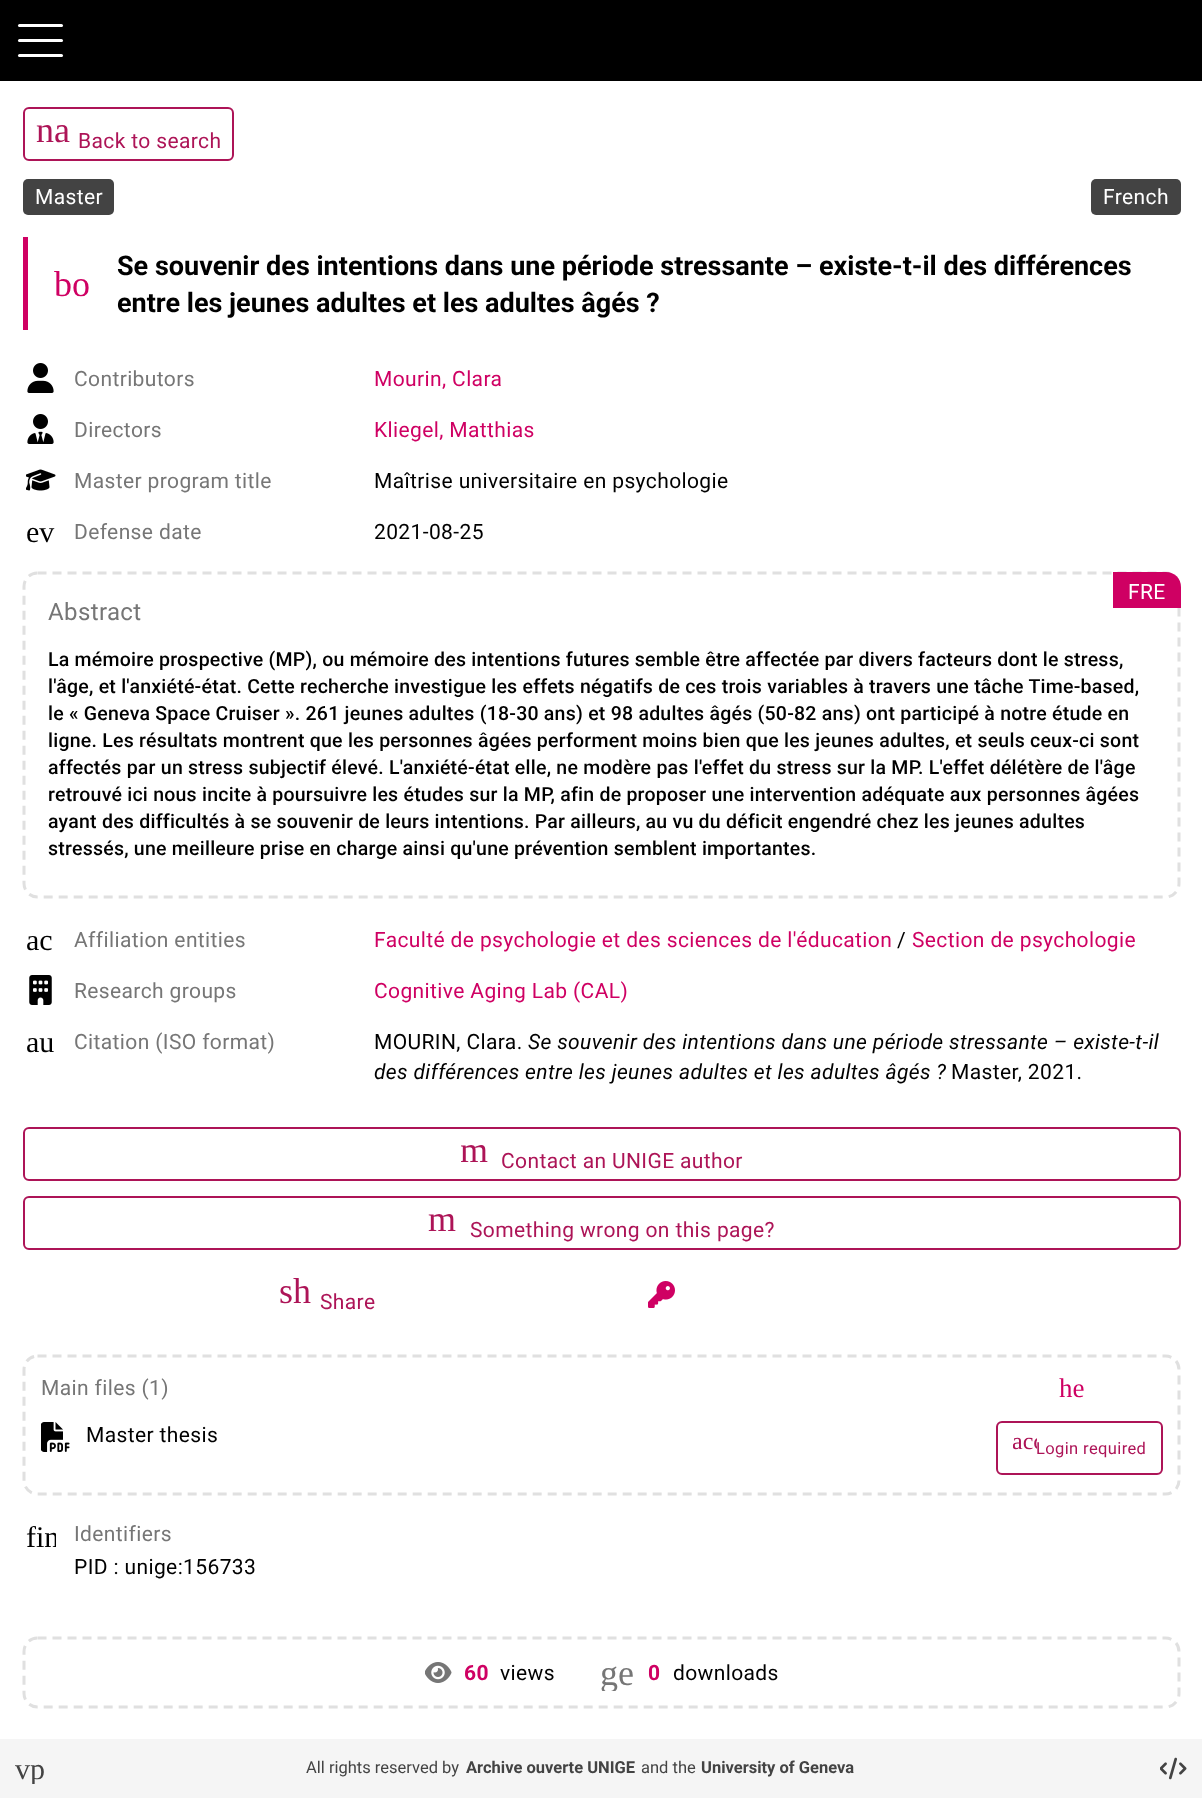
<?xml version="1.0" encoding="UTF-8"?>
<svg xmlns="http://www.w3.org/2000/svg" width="1202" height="1798">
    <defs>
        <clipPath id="clip1"><rect x="461" y="1133" width="36" height="36"/></clipPath>
        <clipPath id="clip2"><rect x="1013" y="1430" width="24" height="24"/></clipPath>
        <clipPath id="clip3"><rect x="26" y="1521" width="30" height="30"/></clipPath>
        <clipPath id="clip4"><rect x="600" y="1655" width="36" height="36"/></clipPath>
        <clipPath id="clip5"><rect x="15" y="1754" width="30" height="30"/></clipPath>
    </defs>
    <rect width="100%" height="100%" fill="#FFFFFF"/>
    <rect x="0" y="0" width="1202" height="81" fill="#000000"/>
    <rect x="18" y="24" width="45" height="3" rx="1.5" fill="#FFFFFF"/>
    <rect x="18" y="39" width="45" height="3" rx="1.5" fill="#FFFFFF"/>
    <rect x="18" y="54" width="45" height="3" rx="1.5" fill="#FFFFFF"/>
    <rect x="24" y="108" width="209" height="52" rx="5" fill="none" stroke="#AD1457" stroke-width="2"/>
    <text x="36" y="142" font-family="Liberation Serif" font-size="36" fill="#AD1457">na</text>
    <text x="78" y="148" font-family="Roboto" font-size="21" letter-spacing="0.38" fill="#AD1457">Back to search</text>
    <rect x="23" y="179" width="91" height="36" rx="5" fill="#434343"/>
    <text x="35" y="204" font-family="Roboto" font-size="21" letter-spacing="0.38" fill="#FFFFFF">Master</text>
    <rect x="1091" y="179" width="90" height="36" rx="5" fill="#434343"/>
    <text x="1103" y="204" font-family="Roboto" font-size="21" letter-spacing="0.38" fill="#FFFFFF">French</text>
    <rect x="23" y="237" width="5" height="93" fill="#CF0063"/>
    <text x="54" y="296" font-family="Liberation Serif" font-size="36" fill="#CF0063">bo</text>
    <text font-family="Roboto" font-size="27" font-weight="700" fill="#000000">
        <tspan x="117" y="275">Se souvenir des intentions dans une période stressante – existe-t-il des différences</tspan>
        <tspan x="117" y="312">entre les jeunes adultes et les adultes âgés ?</tspan>
    </text>
    <image x="27" y="363" width="27" height="30" href="img_01.png"/>
    <text x="74" y="386" font-family="Roboto" font-size="21" letter-spacing="0.38" fill="#767676">Contributors</text>
    <text x="374" y="386" font-family="Roboto" font-size="21" letter-spacing="0.38" fill="#CF0063">Mourin, Clara</text>
    <image x="27" y="414" width="27" height="30" href="img_02.png"/>
    <text x="74" y="437" font-family="Roboto" font-size="21" letter-spacing="0.38" fill="#767676">Directors</text>
    <text x="374" y="437" font-family="Roboto" font-size="21" letter-spacing="0.38" fill="#CF0063">Kliegel, Matthias</text>
    <image x="26" y="469" width="30" height="22" href="img_03.png"/>
    <text x="74" y="488" font-family="Roboto" font-size="21" letter-spacing="0.38" fill="#767676">Master program title</text>
    <text x="374" y="488" font-family="Roboto" font-size="21" letter-spacing="0.38" fill="#000000">Maîtrise universitaire en psychologie</text>
    <text x="26" y="542" font-family="Liberation Serif" font-size="30" fill="#000000">ev</text>
    <text x="74" y="539" font-family="Roboto" font-size="21" letter-spacing="0.38" fill="#767676">Defense date</text>
    <text x="374" y="539" font-family="Roboto" font-size="21" letter-spacing="0.38" fill="#000000">2021-08-25</text>
    <path d="M 37.5 573 H 1165.5 C 1173 573 1179 579 1179 586.5 V 883.5 C 1179 891 1173 897 1165.5 897 H 37.5 C 30 897 24 891 24 883.5 V 586.5 C 24 579 30 573 37.5 573 Z" fill="none" stroke="#E0E0E0" stroke-width="3" stroke-dasharray="9 6"/>
    <path d="M 1113 572 H 1166 C 1174.5 572 1181 578.5 1181 587 V 608 H 1113 Z" fill="#CF0063"/>
    <text x="1128" y="599" font-family="Roboto" font-size="21" letter-spacing="0.38" fill="#FFFFFF">FRE</text>
    <text x="48" y="620" font-family="Roboto" font-size="24" letter-spacing="0.38" fill="#767676">Abstract</text>
    <text font-family="Roboto" font-size="19.5" font-weight="500" letter-spacing="0.24" fill="#000000">
        <tspan x="48" y="666">La mémoire prospective (MP), ou mémoire des intentions futures semble être affectée par divers facteurs dont le stress,</tspan>
        <tspan x="48" y="693">l'âge, et l'anxiété-état. Cette recherche investigue les effets négatifs de ces trois variables à travers une tâche Time-based,</tspan>
        <tspan x="48" y="720">le « Geneva Space Cruiser ». 261 jeunes adultes (18-30 ans) et 98 adultes âgés (50-82 ans) ont participé à notre étude en</tspan>
        <tspan x="48" y="747">ligne. Les résultats montrent que les personnes âgées performent moins bien que les jeunes adultes, et seuls ceux-ci sont</tspan>
        <tspan x="48" y="774">affectés par un stress subjectif élevé. L'anxiété-état elle, ne modère pas l'effet du stress sur la MP. L'effet délétère de l'âge</tspan>
        <tspan x="48" y="801">retrouvé ici nous incite à poursuivre les études sur la MP, afin de proposer une intervention adéquate aux personnes âgées</tspan>
        <tspan x="48" y="828">ayant des difficultés à se souvenir de leurs intentions. Par ailleurs, au vu du déficit engendré chez les jeunes adultes</tspan>
        <tspan x="48" y="855">stressés, une meilleure prise en charge ainsi qu'une prévention semblent importantes.</tspan>
    </text>
    <text x="26" y="950" font-family="Liberation Serif" font-size="30" fill="#000000">ac</text>
    <text x="74" y="947" font-family="Roboto" font-size="21" letter-spacing="0.38" fill="#767676">Affiliation entities</text>
    <text x="374" y="947" font-family="Roboto" font-size="21" letter-spacing="0.38" fill="#CF0063">Faculté de psychologie et des sciences de l'éducation</text>
    <text x="897" y="947" font-family="Roboto" font-size="21" letter-spacing="0.38" fill="#000000">/</text>
    <text x="912" y="947" font-family="Roboto" font-size="21" letter-spacing="0.38" fill="#CF0063">Section de psychologie</text>
    <image x="29" y="975" width="23" height="30" href="img_04.png"/>
    <text x="74" y="998" font-family="Roboto" font-size="21" letter-spacing="0.38" fill="#767676">Research groups</text>
    <text x="374" y="998" font-family="Roboto" font-size="21" letter-spacing="0.38" fill="#CF0063">Cognitive Aging Lab (CAL)</text>
    <text x="26" y="1052" font-family="Liberation Serif" font-size="30" fill="#000000">au</text>
    <text x="74" y="1049" font-family="Roboto" font-size="21" letter-spacing="0.38" fill="#767676">Citation (ISO format)</text>
    <text x="374" y="1049" font-family="Roboto" font-size="21" letter-spacing="0.38" fill="#000000">MOURIN, Clara.</text>
    <text x="528" y="1049" font-family="Roboto" font-size="21" font-style="italic" letter-spacing="0.38" fill="#000000">Se souvenir des intentions dans une période stressante – existe-t-il</text>
    <text x="374" y="1079" font-family="Roboto" font-size="21" font-style="italic" letter-spacing="0.38" fill="#000000">des différences entre les jeunes adultes et les adultes âgés ?</text>
    <text x="951" y="1079" font-family="Roboto" font-size="21" letter-spacing="0.38" fill="#000000">Master, 2021.</text>
    <rect x="24" y="1128" width="1156" height="52" rx="5" fill="none" stroke="#AD1457" stroke-width="2"/>
    <g clip-path="url(#clip1)">
        <text x="460" y="1162" font-family="Liberation Serif" font-size="36" fill="#AD1457">m</text>
    </g>
    <text x="501" y="1168" font-family="Roboto" font-size="21" letter-spacing="0.38" fill="#AD1457">Contact an UNIGE author</text>
    <rect x="24" y="1197" width="1156" height="52" rx="5" fill="none" stroke="#AD1457" stroke-width="2"/>
    <text x="428" y="1231" font-family="Liberation Serif" font-size="36" fill="#AD1457">m</text>
    <text x="470" y="1237" font-family="Roboto" font-size="21" letter-spacing="0.38" fill="#AD1457">Something wrong on this page?</text>
    <text x="279" y="1303" font-family="Liberation Serif" font-size="36" fill="#AD1457">sh</text>
    <text x="320" y="1309" font-family="Roboto" font-size="21" letter-spacing="0.38" fill="#AD1457">Share</text>
    <image x="648" y="1281" width="27" height="27" href="img_05.png"/>
    <path d="M 37.5 1356 H 1165.5 C 1173 1356 1179 1362 1179 1369.5 V 1480.5 C 1179 1488 1173 1494 1165.5 1494 H 37.5 C 30 1494 24 1488 24 1480.5 V 1369.5 C 24 1362 30 1356 37.5 1356 Z" fill="none" stroke="#E0E0E0" stroke-width="3" stroke-dasharray="9 6"/>
    <text x="41" y="1395" font-family="Roboto" font-size="21" letter-spacing="0.38" fill="#767676">Main files (1)</text>
    <text x="1059" y="1397" font-family="Liberation Serif" font-size="27" fill="#CF0063">he</text>
    <image x="41" y="1422" width="29" height="30" href="img_06.png"/>
    <text x="86" y="1442" font-family="Roboto" font-size="21" letter-spacing="0.38" fill="#000000">Master thesis</text>
    <rect x="997" y="1422" width="165" height="52" rx="5" fill="none" stroke="#AD1457" stroke-width="2"/>
    <g clip-path="url(#clip2)">
        <text x="1012" y="1449" font-family="Liberation Serif" font-size="24" fill="#AD1457">acc</text>
    </g>
    <text x="1036" y="1454" font-family="Roboto" font-size="16.5" letter-spacing="0.38" fill="#AD1457">Login required</text>
    <g clip-path="url(#clip3)">
        <text x="26" y="1547" font-family="Liberation Serif" font-size="30" fill="#000000">fin</text>
    </g>
    <text x="74" y="1541" font-family="Roboto" font-size="21" letter-spacing="0.38" fill="#767676">Identifiers</text>
    <text x="74" y="1574" font-family="Roboto" font-size="21" letter-spacing="0.38" fill="#000000">PID : unige:156733</text>
    <path d="M 37.5 1638 H 1165.5 C 1173 1638 1179 1644 1179 1651.5 V 1693.5 C 1179 1701 1173 1707 1165.5 1707 H 37.5 C 30 1707 24 1701 24 1693.5 V 1651.5 C 24 1644 30 1638 37.5 1638 Z" fill="none" stroke="#E0E0E0" stroke-width="3" stroke-dasharray="9 6"/>
    <image x="425" y="1662" width="27" height="21" href="img_07.png"/>
    <text x="464" y="1680" font-family="Roboto" font-size="21" font-weight="700" letter-spacing="0.38" fill="#CF0063">60</text>
    <text x="500" y="1680" font-family="Roboto" font-size="21" letter-spacing="0.38" fill="#000000">views</text>
    <g clip-path="url(#clip4)">
        <text x="600" y="1685" font-family="Liberation Serif" font-size="36" fill="#767676">ge</text>
    </g>
    <text x="648" y="1680" font-family="Roboto" font-size="21" font-weight="700" letter-spacing="0.38" fill="#CF0063">0</text>
    <text x="673" y="1680" font-family="Roboto" font-size="21" letter-spacing="0.38" fill="#000000">downloads</text>
    <rect x="0" y="1739" width="1202" height="59" fill="#F5F5F5"/>
    <g clip-path="url(#clip5)">
        <text x="15" y="1779" font-family="Liberation Serif" font-size="30" fill="#434343">vp</text>
    </g>
    <text x="306" y="1773" font-family="Roboto" font-size="16.5" fill="#434343">All rights reserved by</text>
    <text x="466" y="1773" font-family="Roboto" font-size="16.5" font-weight="700" fill="#434343">Archive ouverte UNIGE</text>
    <text x="641" y="1773" font-family="Roboto" font-size="16.5" fill="#434343">and the</text>
    <text x="701" y="1773" font-family="Roboto" font-size="16.5" font-weight="700" fill="#434343">University of Geneva</text>
    <image x="1160" y="1757" width="27" height="23" href="img_08.png"/>
</svg>
